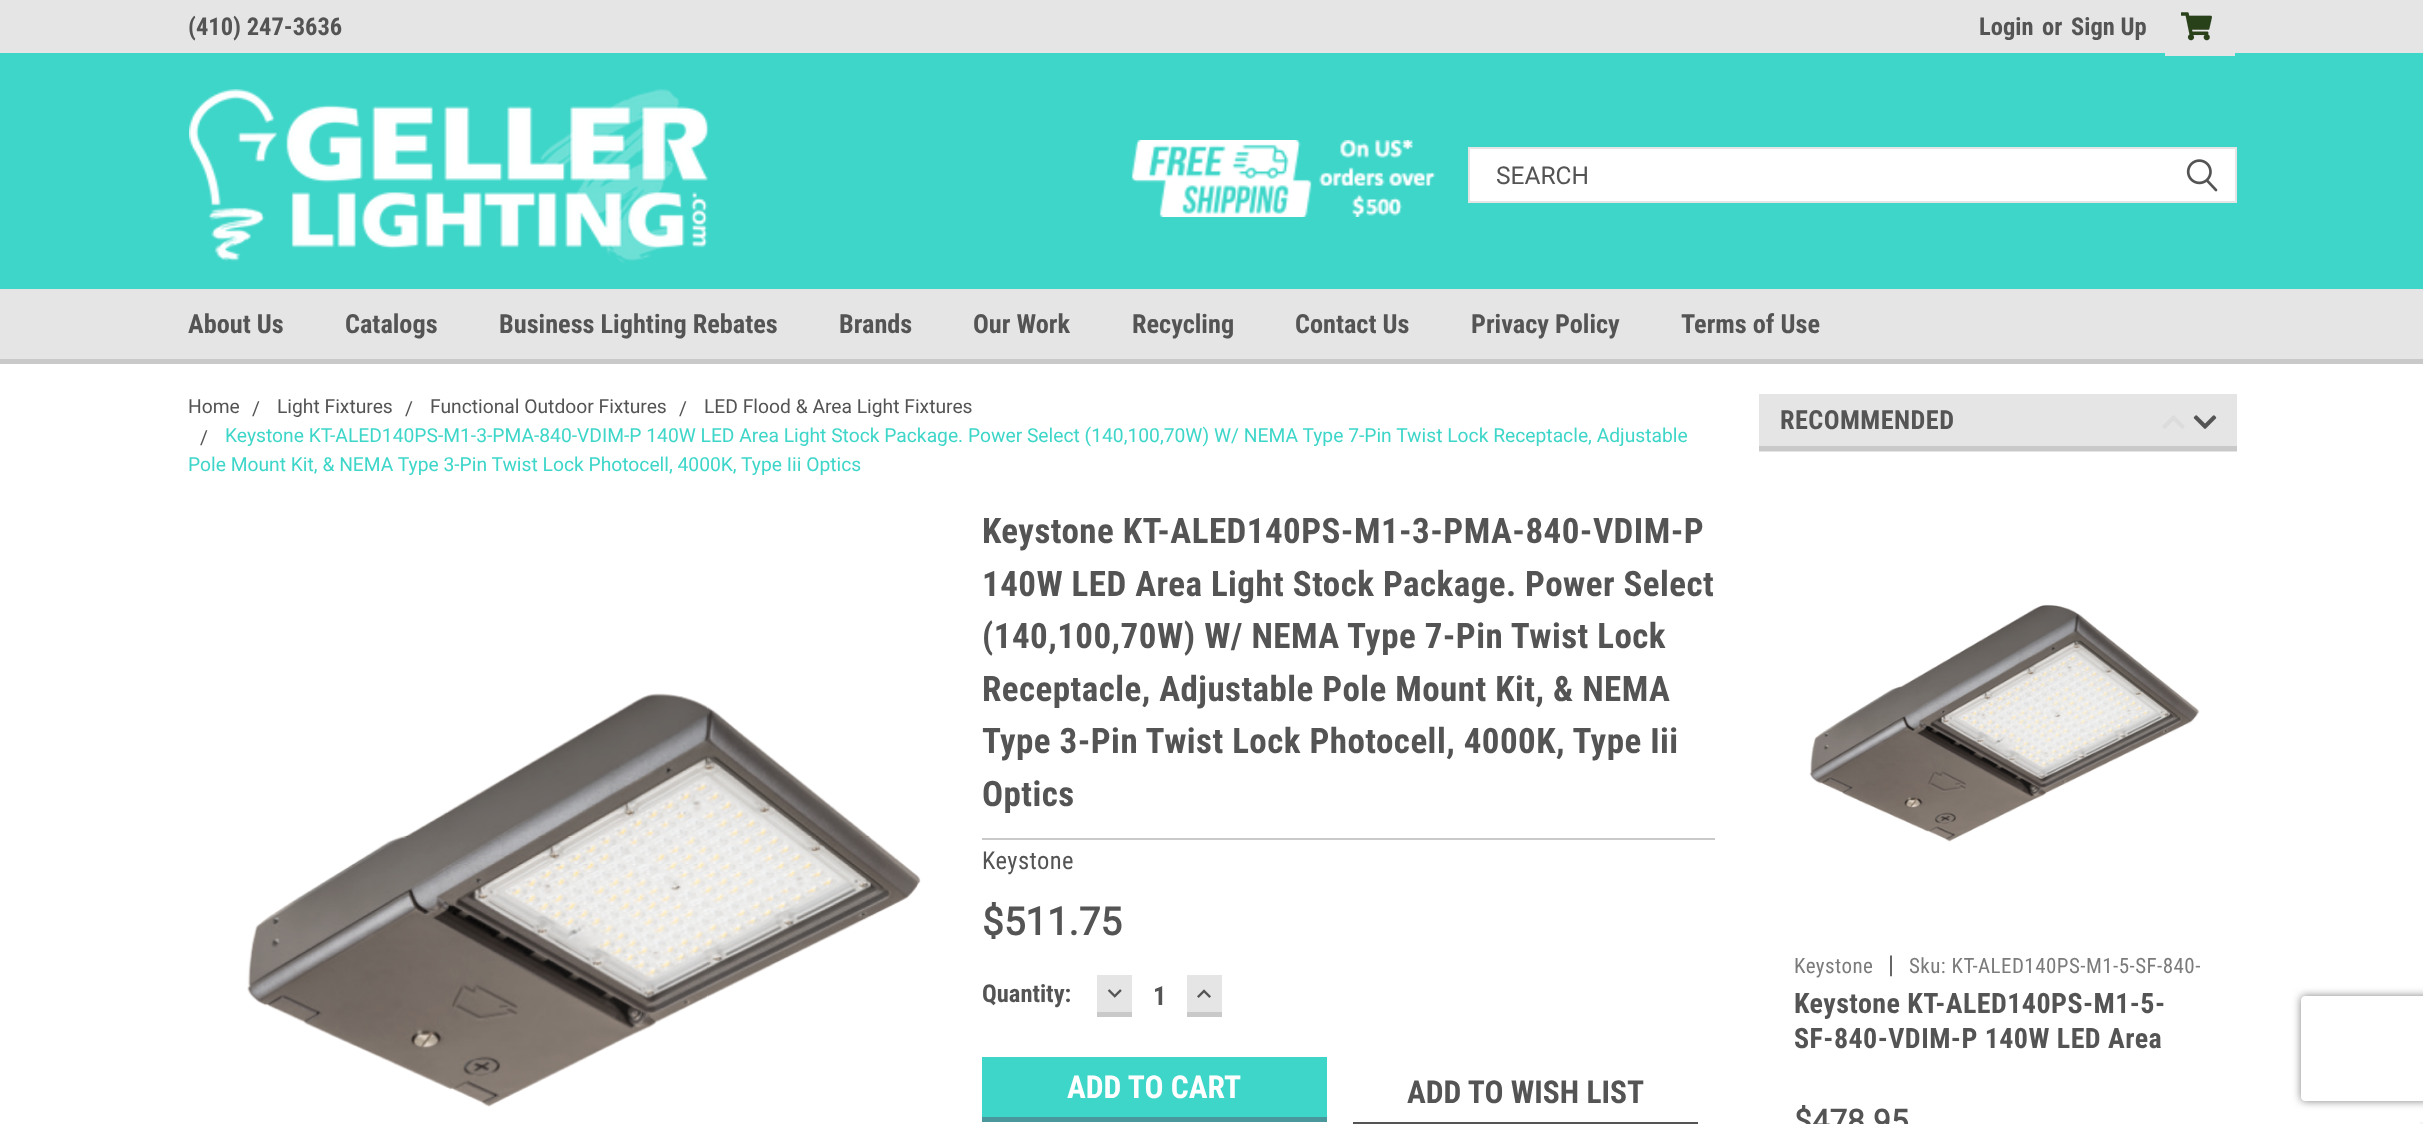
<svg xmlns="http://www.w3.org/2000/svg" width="2423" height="1124">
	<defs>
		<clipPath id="clip1"><path d="M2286 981H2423V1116H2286ZM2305 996H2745C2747 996 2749 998 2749 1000V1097C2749 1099 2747 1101 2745 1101H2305C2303 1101 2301 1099 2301 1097V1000C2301 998 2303 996 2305 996Z" clip-rule="evenodd" /></clipPath>
	</defs>
	<rect width="100%" height="100%" fill="#FFFFFF" />
	<rect x="0" y="53" width="2423" height="236" fill="#3ED6C9" />
	<rect x="0" y="0" width="2423" height="53" fill="#E5E5E5" />
	<g font-family="Roboto Condensed" font-size="24.5" font-weight="700" fill="#545454">
		<text x="188" y="35">(410) 247-3636</text>
		<text x="1979" y="35">Login</text>
		<text x="2042" y="35">or</text>
		<text x="2071" y="35">Sign Up</text>
	</g>
	<rect x="2165" y="53" width="70" height="3" fill="#E5E5E5" />
	<image x="2181" y="12" width="31" height="29" href="assets/img1.png" />
	<image x="189" y="89" width="520" height="174" href="assets/img2.png" />
	<image x="1131" y="140" width="305" height="77" href="assets/img3.png" />
	<rect x="1469" y="148" width="767" height="54" fill="#FFFFFF" stroke="#E5E5E5" stroke-width="2" />
	<text x="1496" y="184" font-family="Roboto" font-size="24.5" fill="#545454">SEARCH</text>
	<image x="2186" y="159" width="32" height="33" href="assets/img4.png" />
	<rect x="0" y="289" width="2423" height="70" fill="#E5E5E5" />
	<rect x="0" y="359" width="2423" height="5" fill="#C9C9C9" />
	<g font-family="Roboto Condensed" font-size="26.25" font-weight="700" fill="#545454">
		<text x="188" y="333">About Us</text>
		<text x="345" y="333">Catalogs</text>
		<text x="499" y="333">Business Lighting Rebates</text>
		<text x="839" y="333">Brands</text>
		<text x="973" y="333">Our Work</text>
		<text x="1132" y="333">Recycling</text>
		<text x="1295" y="333">Contact Us</text>
		<text x="1471" y="333">Privacy Policy</text>
		<text x="1681" y="333">Terms of Use</text>
	</g>
	<g font-family="Roboto" font-size="19.25" fill="#545454">
		<text x="188" y="413">Home</text>
		<text x="252" y="415">/</text>
		<text x="277" y="413">Light Fixtures</text>
		<text x="405" y="415">/</text>
		<text x="430" y="413">Functional Outdoor Fixtures</text>
		<text x="679" y="415">/</text>
		<text x="704" y="413">LED Flood &amp; Area Light Fixtures</text>
		<text x="200" y="444">/</text>
	</g>
	<g font-family="Roboto" font-size="19.25" fill="#3ED6C9">
		<text x="225" y="442">Keystone KT-ALED140PS-M1-3-PMA-840-VDIM-P 140W LED Area Light Stock Package. Power Select (140,100,70W) W/ NEMA Type 7-Pin Twist Lock Receptacle, Adjustable</text>
		<text x="188" y="471">Pole Mount Kit, &amp; NEMA Type 3-Pin Twist Lock Photocell, 4000K, Type Iii Optics</text>
	</g>
	<image x="247" y="693" width="674" height="414" href="assets/img5.png" />
	<rect x="982" y="838" width="733" height="2" fill="#C9C9C9" />
	<g font-family="Roboto Condensed" font-size="35" font-weight="700" letter-spacing="0.45" fill="#545454">
		<text x="982" y="543">Keystone KT-ALED140PS-M1-3-PMA-840-VDIM-P</text>
		<text x="982" y="596">140W LED Area Light Stock Package. Power Select</text>
		<text x="982" y="648">(140,100,70W) W/ NEMA Type 7-Pin Twist Lock</text>
		<text x="982" y="701">Receptacle, Adjustable Pole Mount Kit, &amp; NEMA</text>
		<text x="982" y="753">Type 3-Pin Twist Lock Photocell, 4000K, Type Iii</text>
		<text x="982" y="806">Optics</text>
	</g>
	<text x="982" y="869" font-family="Roboto Condensed" font-size="24.5" letter-spacing="0.45" fill="#545454">Keystone</text>
	<text x="982" y="935" font-family="Roboto" font-size="38.5" font-weight="700" fill="#545454">$511.75</text>
	<text x="982" y="1002" font-family="Roboto Condensed" font-size="24.5" font-weight="700" fill="#545454">Quantity:</text>
	<rect x="1097" y="975" width="35" height="37" fill="#E5E5E5" />
	<rect x="1097" y="1012" width="35" height="5" fill="#C9C9C9" />
	<image x="1107" y="989" width="15" height="9" href="assets/img6.png" />
	<text x="1153" y="1005" font-family="Roboto Condensed" font-size="26.25" font-weight="700" fill="#545454">1</text>
	<rect x="1187" y="975" width="35" height="37" fill="#E5E5E5" />
	<rect x="1187" y="1012" width="35" height="5" fill="#C9C9C9" />
	<image x="1197" y="989" width="14" height="9" href="assets/img7.png" />
	<rect x="982" y="1057" width="345" height="60" fill="#3ED6C9" />
	<rect x="982" y="1117" width="345" height="5" fill="#4A989B" />
	<text x="1067" y="1098" font-family="Roboto Condensed" font-size="31.5" font-weight="700" fill="#FFFFFF">ADD TO CART</text>
	<rect x="1353" y="1122" width="345" height="2" fill="#545454" />
	<text x="1407" y="1103" font-family="Roboto Condensed" font-size="31.5" font-weight="700" fill="#545454">ADD TO WISH LIST</text>
	<rect x="1759" y="394" width="478" height="58" fill="#E5E5E5" />
	<rect x="1759" y="446" width="478" height="5" fill="#C9C9C9" />
	<text x="1780" y="429" font-family="Roboto Condensed" font-size="26.25" font-weight="700" letter-spacing="0.45" fill="#545454">RECOMMENDED</text>
	<image x="2162" y="415" width="23" height="14" href="assets/img8.png" />
	<image x="2193" y="415" width="24" height="14" href="assets/img9.png" />
	<image x="1809" y="604" width="391" height="238" href="assets/img10.png" />
	<text x="1794" y="973" font-family="Roboto Condensed" font-size="21" letter-spacing="0.45" fill="#7B7B7B">Keystone</text>
	<text x="1888" y="973" font-family="Roboto" font-size="24.5" fill="#545454">|</text>
	<text x="1909" y="973" font-family="Roboto Condensed" font-size="21" letter-spacing="0.45" fill="#7B7B7B">Sku: KT-ALED140PS-M1-5-SF-840-</text>
	<g font-family="Roboto Condensed" font-size="28" font-weight="700" letter-spacing="0.45" fill="#545454">
		<text x="1794" y="1013">Keystone KT-ALED140PS-M1-5-</text>
		<text x="1794" y="1048">SF-840-VDIM-P 140W LED Area</text>
	</g>
	<text x="1794" y="1132" font-family="Roboto" font-size="31.5" font-weight="700" fill="#545454">$478.95</text>
	<g clip-path="url(#clip1)">
		<rect x="2301" y="996" width="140" height="105" rx="4" fill="#808080" filter="blur(4.5px)" />
	</g>
	<rect x="2420" y="1122" width="3" height="2" fill="#F5F5F5" />
</svg>
